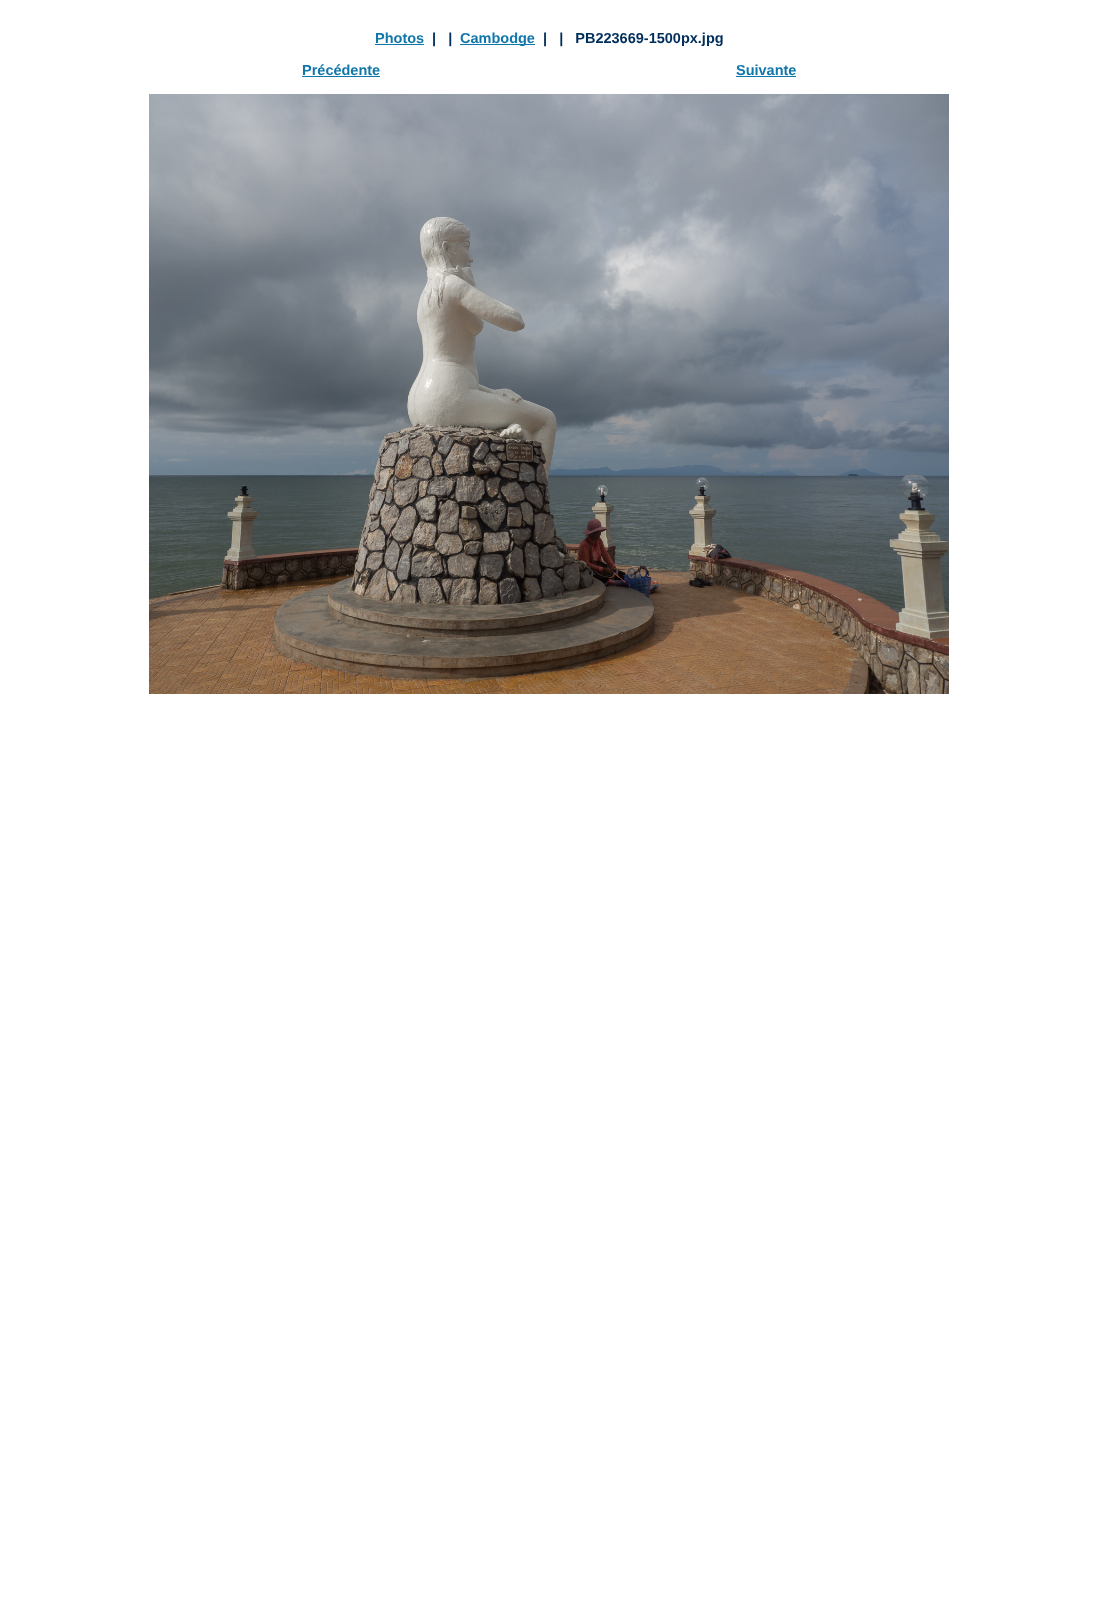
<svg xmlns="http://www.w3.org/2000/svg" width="1098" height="1603">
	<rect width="100%" height="100%" fill="#FFFFFF" />
	<text x="375" y="43" font-family="Liberation Sans" font-size="14.5" font-weight="700" fill="#1177AA">Photos</text>
	<rect x="375" y="44" width="49" height="1" fill="#1177AA" />
	<text x="432" y="43" font-family="Liberation Sans" font-size="14.5" font-weight="700" fill="#002E5B" xml:space="preserve">|   |</text>
	<rect x="460" y="44" width="75" height="1" fill="#1177AA" />
	<text x="460" y="43" font-family="Liberation Sans" font-size="14.5" font-weight="700" fill="#1177AA">Cambodge</text>
	<text x="543" y="43" font-family="Liberation Sans" font-size="14.5" font-weight="700" fill="#002E5B" xml:space="preserve">|   |   PB223669-1500px.jpg</text>
	<text x="302" y="75" font-family="Liberation Sans" font-size="14.5" font-weight="700" fill="#1177AA">Précédente</text>
	<rect x="302" y="76" width="78" height="1" fill="#1177AA" />
	<text x="736" y="75" font-family="Liberation Sans" font-size="14.5" font-weight="700" fill="#1177AA">Suivante</text>
	<rect x="736" y="76" width="60" height="1" fill="#1177AA" />
	<image x="149" y="94" width="800" height="600" href="assets/img1.png" />
</svg>
